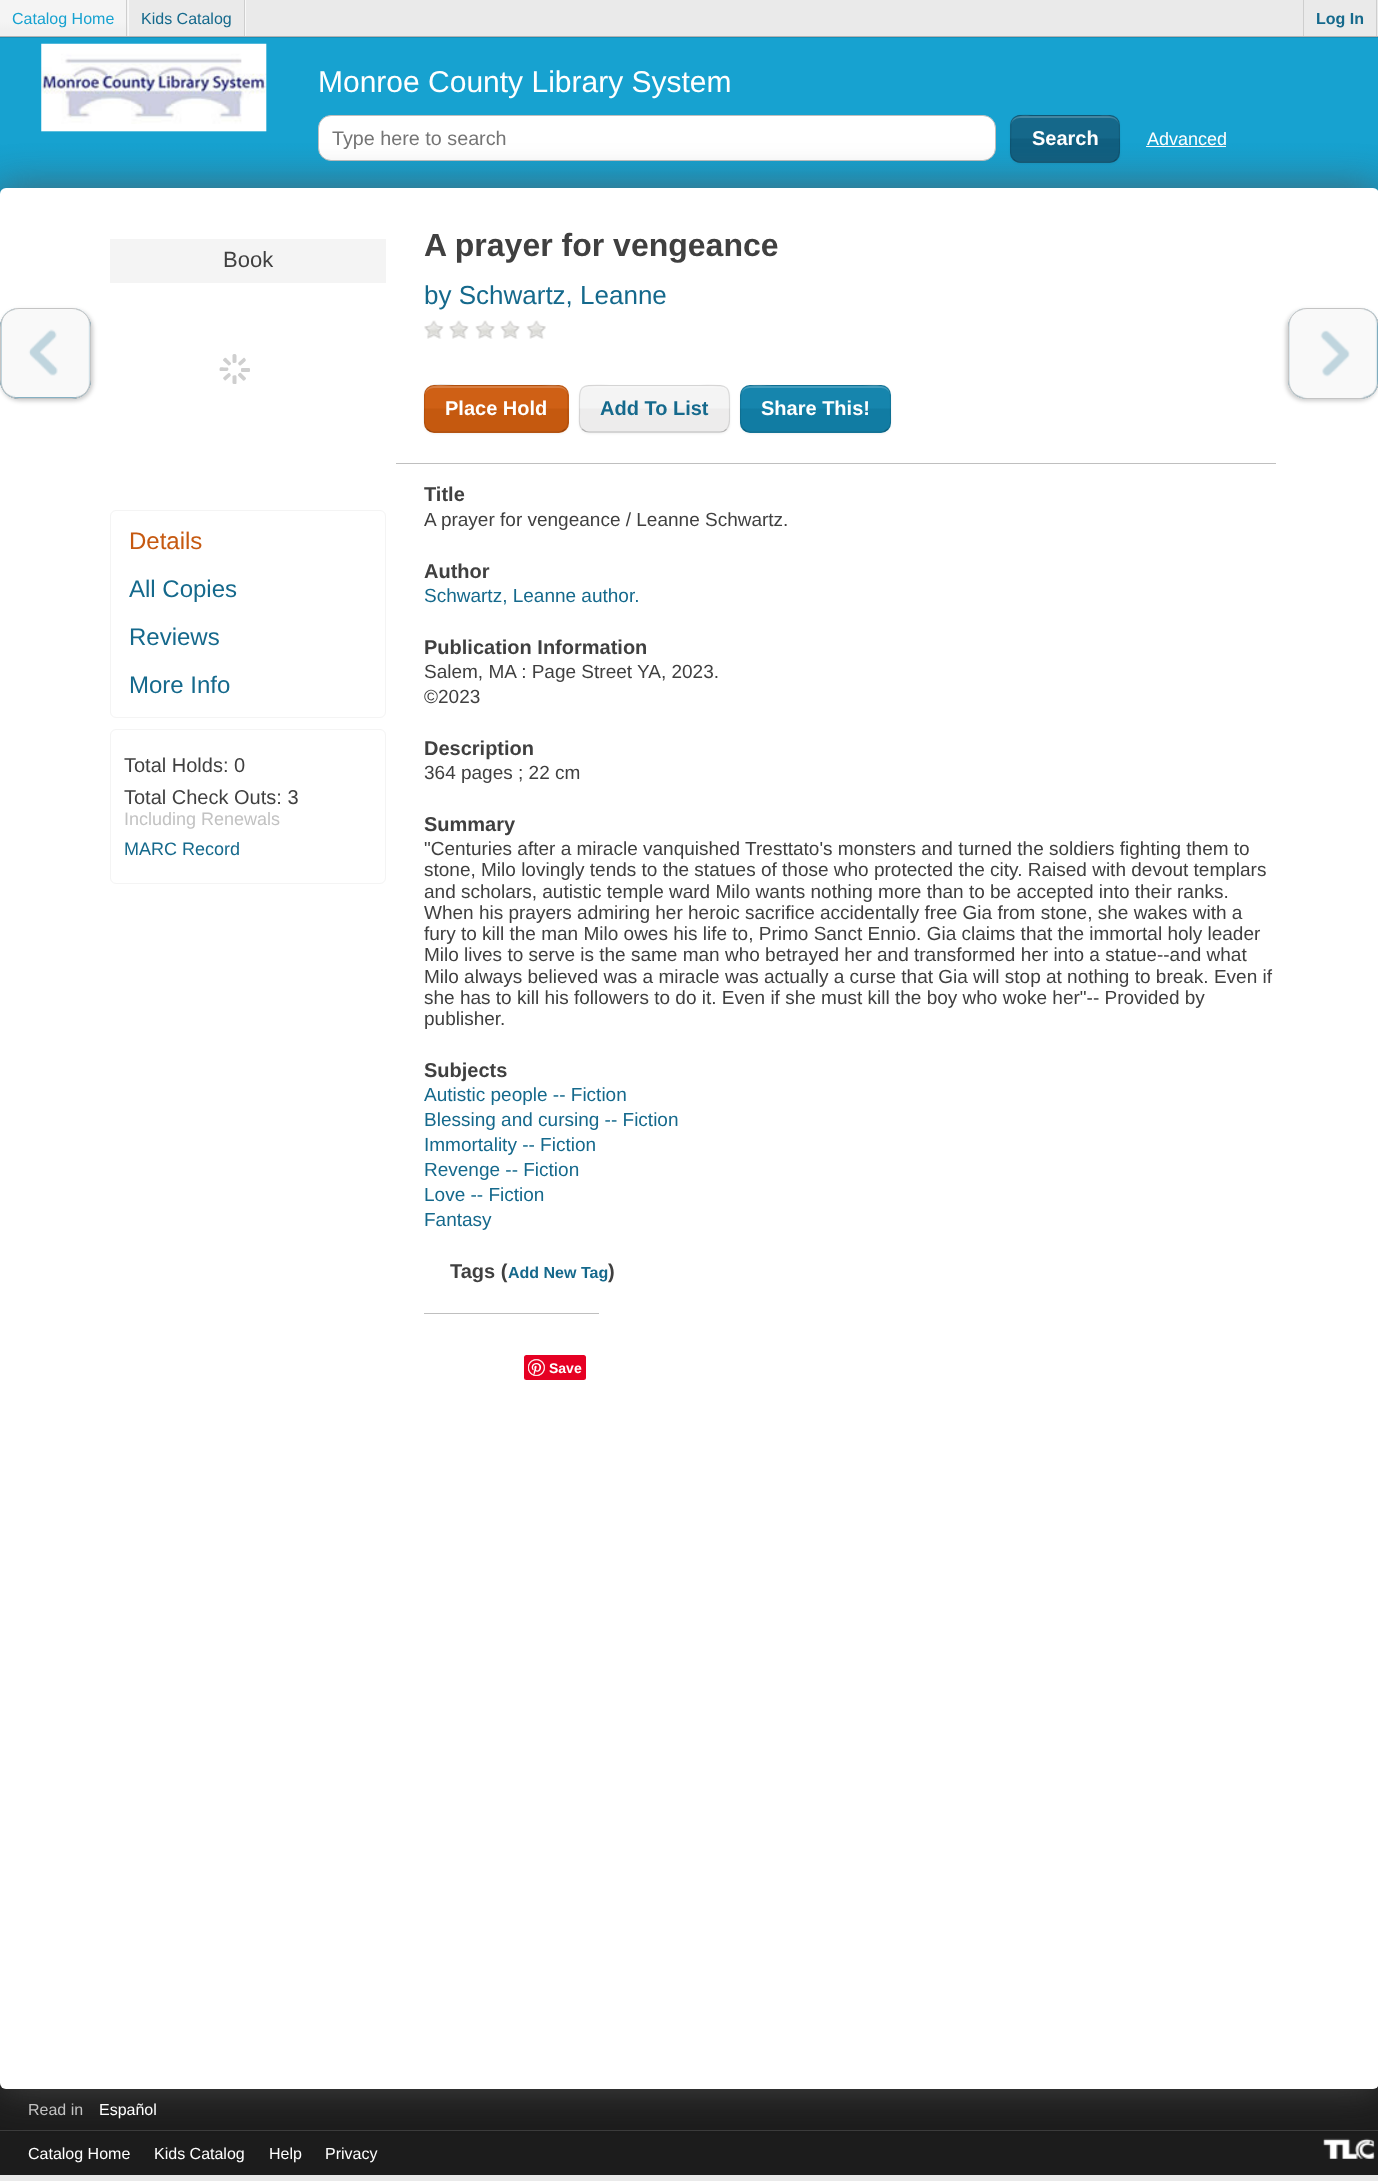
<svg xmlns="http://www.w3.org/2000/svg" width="1378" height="2181">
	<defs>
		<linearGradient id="g1" gradientUnits="userSpaceOnUse" x1="63" y1="0" x2="63" y2="36"><stop offset="0.6" stop-color="#F4F4F4" /><stop offset="0.8" stop-color="#F0F0F0" /></linearGradient>
		<linearGradient id="g2" gradientUnits="userSpaceOnUse" x1="689" y1="37" x2="689" y2="250"><stop offset="0.5" stop-color="#17A2D0" /><stop offset="1" stop-color="#158FB8" /></linearGradient>
		<clipPath id="clip1"><rect x="1010" y="115" width="110" height="48" rx="10" /></clipPath>
		<linearGradient id="g3" gradientUnits="userSpaceOnUse" x1="1065" y1="71" x2="1065" y2="116"><stop offset="0.48" stop-color="#15688A" /><stop offset="0.52" stop-color="#105F80" /></linearGradient>
		<linearGradient id="g4" gradientUnits="userSpaceOnUse" x1="1065" y1="116" x2="1065" y2="161"><stop offset="0.48" stop-color="#15688A" /><stop offset="0.52" stop-color="#105F80" /></linearGradient>
		<linearGradient id="g5" gradientUnits="userSpaceOnUse" x1="1065" y1="161" x2="1065" y2="206"><stop offset="0.48" stop-color="#15688A" /><stop offset="0.52" stop-color="#105F80" /></linearGradient>
		<linearGradient id="g6" gradientUnits="userSpaceOnUse" x1="689" y1="2026" x2="689" y2="2175"><stop offset="0" stop-color="#3A3A3A" /><stop offset="0.3" stop-color="#1C1C1C" /></linearGradient>
		<clipPath id="clip2"><rect x="424" y="385" width="145" height="48" rx="10" /></clipPath>
		<linearGradient id="g7" gradientUnits="userSpaceOnUse" x1="496" y1="341" x2="496" y2="386"><stop offset="0.48" stop-color="#CF6015" /><stop offset="0.52" stop-color="#C5590F" /></linearGradient>
		<linearGradient id="g8" gradientUnits="userSpaceOnUse" x1="496" y1="386" x2="496" y2="431"><stop offset="0.48" stop-color="#CF6015" /><stop offset="0.52" stop-color="#C5590F" /></linearGradient>
		<linearGradient id="g9" gradientUnits="userSpaceOnUse" x1="496" y1="431" x2="496" y2="476"><stop offset="0.48" stop-color="#CF6015" /><stop offset="0.52" stop-color="#C5590F" /></linearGradient>
		<clipPath id="clip3"><rect x="579" y="385" width="151" height="48" rx="10" /></clipPath>
		<linearGradient id="g10" gradientUnits="userSpaceOnUse" x1="654" y1="341" x2="654" y2="386"><stop offset="0.48" stop-color="#F4F4F4" /><stop offset="0.52" stop-color="#EDECEC" /></linearGradient>
		<linearGradient id="g11" gradientUnits="userSpaceOnUse" x1="654" y1="386" x2="654" y2="431"><stop offset="0.48" stop-color="#F4F4F4" /><stop offset="0.52" stop-color="#EDECEC" /></linearGradient>
		<clipPath id="clip4"><rect x="740" y="385" width="151" height="48" rx="10" /></clipPath>
		<linearGradient id="g12" gradientUnits="userSpaceOnUse" x1="816" y1="341" x2="816" y2="386"><stop offset="0.48" stop-color="#1685AD" /><stop offset="0.52" stop-color="#117CA3" /></linearGradient>
		<linearGradient id="g13" gradientUnits="userSpaceOnUse" x1="816" y1="386" x2="816" y2="431"><stop offset="0.48" stop-color="#1685AD" /><stop offset="0.52" stop-color="#117CA3" /></linearGradient>
		<linearGradient id="g14" gradientUnits="userSpaceOnUse" x1="816" y1="431" x2="816" y2="476"><stop offset="0.48" stop-color="#1685AD" /><stop offset="0.52" stop-color="#117CA3" /></linearGradient>
	</defs>
	<rect width="100%" height="100%" fill="#EAEAEA" />
	<rect x="128" y="0" width="1" height="36" fill="#F8F8F8" />
	<rect x="0" y="0" width="128" height="36" fill="url(#g1)" />
	<rect x="126" y="0" width="1" height="36" fill="#CECECE" />
	<text x="12" y="24" font-family="Liberation Sans" font-size="16" fill="#17A2D0">Catalog Home</text>
	<rect x="245" y="0" width="1" height="36" fill="#F8F8F8" />
	<rect x="244" y="0" width="1" height="36" fill="#CECECE" />
	<text x="141" y="24" font-family="Liberation Sans" font-size="16" fill="#15698C">Kids Catalog</text>
	<rect x="1303" y="0" width="1" height="36" fill="#CECECE" />
	<rect x="1376" y="0" width="1" height="36" fill="#CECECE" />
	<text x="1316" y="24" font-family="Liberation Sans" font-size="16" font-weight="700" fill="#15698C">Log In</text>
	<rect x="0" y="37" width="1378" height="1" fill="#158FB8" />
	<rect x="0" y="38" width="1378" height="156" fill="url(#g2)" />
	<rect x="0" y="36" width="1378" height="1" fill="#B4B4B4" />
	<image x="41" y="43" width="226" height="89" href="assets/img1.png" />
	<text x="318" y="92" font-family="Liberation Sans" font-size="30" fill="#FFFFFF">Monroe County Library System</text>
	<rect x="318.5" y="115.5" width="677" height="45" rx="12.5" fill="#FFFFFF" stroke="#BFBFBF" />
	<text x="332" y="145" font-family="Liberation Sans" font-size="19.75" fill="#757575">Type here to search</text>
	<rect x="1010" y="116" width="110" height="48" rx="10" fill="#000000" fill-opacity="0.05" filter="blur(1px)" />
	<g clip-path="url(#clip1)">
		<rect x="1010" y="115" width="110" height="1" fill="url(#g3)" />
		<rect x="1010" y="116" width="110" height="45" fill="url(#g4)" />
		<rect x="1010" y="161" width="110" height="2" fill="url(#g5)" />
	</g>
	<path d="M1020 118H1110C1115 118 1119 121 1119 126C1119 113 1104 116 1095 116H1035C1026 116 1011 113 1011 126C1011 121 1015 118 1020 118Z" fill="#4486A1" />
	<path d="M1116.5 159C1115 161 1112.5 162 1110 162H1020C1017.5 162 1015 161 1013.5 159" fill="none" stroke="#000000" stroke-opacity="0.25" stroke-width="1.2" />
	<path d="M1013.5 159C1010 156 1010.5 152 1010.5 148L1011 123C1013 112.5 1028 115.5 1035 115.5H1095C1120 115.5 1119.5 114.5 1119.5 139C1119.5 144.5 1121 154.5 1116.5 159" fill="none" stroke="#000000" stroke-opacity="0.1" stroke-width="1.2" />
	<text x="1032" y="145" font-family="Liberation Sans" font-size="20" font-weight="700" fill="#FFFFFF">Search</text>
	<text x="1147" y="145" font-family="Liberation Sans" font-size="18" fill="#FFFFFF">Advanced</text>
	<rect x="1146" y="146" width="80" height="1" fill="#FFFFFF" />
	<rect x="0" y="2083" width="1378" height="92" fill="url(#g6)" />
	<rect x="0" y="2130" width="1378" height="1" fill="#3C3C3C" />
	<image x="1323" y="2138" width="52" height="21" href="assets/img8.png" />
	<rect x="0" y="188" width="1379" height="1901" rx="6" fill="#555555" fill-opacity="0.7" filter="blur(19px)" />
	<rect x="0" y="188" width="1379" height="1901" rx="6" fill="#FFFFFF" />
	<rect x="1" y="310" width="92" height="91" rx="19" fill="#000000" fill-opacity="0.2" filter="blur(2px)" />
	<rect x="0" y="308" width="91" height="91" rx="19" fill="#15698C" />
	<image x="1" y="308" width="90" height="90" href="assets/img2.png" />
	<rect x="0.5" y="308.5" width="90" height="90" rx="18.5" fill="none" stroke="#C4C4C4" />
	<rect x="110" y="239" width="276" height="44" fill="#F4F4F4" />
	<text x="223" y="267" font-family="Liberation Sans" font-size="22" fill="#404040">Book</text>
	<rect x="241" y="368" width="9" height="4" rx="1" fill="#CFCFCF" />
	<path d="M241 373L246 378C246 378.5 246 379 245.5 379.5C243 382 243 380 240.5 378L238 375.5C237.5 374 240 372 241 373ZM236.5 376.5V383.5C236 384 235.5 384 235 384C232 384.5 232.5 383 232.5 380V376C233.5 375 236.5 375 236.5 376.5ZM230.5 376L225.5 380.5C225 380.5 224.5 380.5 224.5 380C222 378 223.5 377.5 225.5 375.5L228.5 373C229.5 372.5 231.5 374.5 230.5 376ZM227 371H220.5C220 371 219.5 370.5 219.5 370C219.5 366.5 221 367.5 224 367.5H227.5C229 368 228.5 371 227 371ZM228 365L223 360.5C223 360 223 359.5 223.5 359C226 356.5 226 358.5 228.5 360.5L231 363C231.5 364.5 229 366.5 228 365Z" fill="#CFCFCF" />
	<path d="M232.5 361.5V355C233 354.5 233.5 354 234 354C237 354 236.5 355.5 236.5 358.5V362C235.5 363.5 232.5 363.5 232.5 361.5ZM238.5 362.5L243.5 358C244 357.5 244.5 358 244.5 358C247 360.5 245.5 361 243.5 363L240.5 365.5C239.5 366 237.5 364 238.5 362.5Z" fill="#CFCFCF" />
	<rect x="110.5" y="510.5" width="275" height="207" rx="5.5" fill="none" stroke="#F4F4F4" />
	<text x="129" y="549" font-family="Liberation Sans" font-size="24" fill="#C65910">Details</text>
	<g font-family="Liberation Sans" font-size="24" fill="#15698C">
		<text x="129" y="597">All Copies</text>
		<text x="129" y="645">Reviews</text>
		<text x="129" y="693">More Info</text>
	</g>
	<rect x="110.5" y="729.5" width="275" height="154" rx="5.5" fill="none" stroke="#F4F4F4" />
	<g font-family="Liberation Sans" font-size="20" fill="#404040">
		<text x="124" y="772">Total Holds: 0</text>
		<text x="124" y="804">Total Check Outs: 3</text>
	</g>
	<text x="124" y="825" font-family="Liberation Sans" font-size="18" fill="#C2C2C2">Including Renewals</text>
	<text x="124" y="855" font-family="Liberation Sans" font-size="18" fill="#15698C">MARC Record</text>
	<rect x="396" y="463" width="880" height="1" fill="#BFBFBF" />
	<text x="424" y="256" font-family="Liberation Sans" font-size="32" font-weight="700" fill="#404040">A prayer for vengeance</text>
	<text x="424" y="304" font-family="Liberation Sans" font-size="26" fill="#15698C">by Schwartz, Leanne</text>
	<image x="424" y="320" width="20" height="19" href="assets/img3.png" />
	<image x="449" y="320" width="20" height="19" href="assets/img3.png" />
	<image x="475" y="320" width="20" height="19" href="assets/img4.png" />
	<image x="500" y="320" width="20" height="19" href="assets/img4.png" />
	<image x="526" y="320" width="20" height="19" href="assets/img5.png" />
	<rect x="424" y="386" width="145" height="48" rx="10" fill="#000000" fill-opacity="0.05" filter="blur(1px)" />
	<g clip-path="url(#clip2)">
		<rect x="424" y="385" width="145" height="1" fill="url(#g7)" />
		<rect x="424" y="386" width="145" height="45" fill="url(#g8)" />
		<rect x="424" y="431" width="145" height="2" fill="url(#g9)" />
	</g>
	<path d="M434 388H559C564 388 568 391 568 396C568 381 547 386 538 386H455C446 386 425 381 425 396C425 391 429 388 434 388Z" fill="#FFFFFF" fill-opacity="0.2" />
	<path d="M565.5 429C563.5 431 561 432 559 432H434C431.5 432 429 431 427 429" fill="none" stroke="#000000" stroke-opacity="0.25" stroke-width="1.2" />
	<path d="M427 429C422.5 424.5 424.5 414.5 424.5 409V393C427 381 448.5 385.5 454.5 385.5H538C570.5 385.5 568 383 568 413.5C568 418.5 569.5 425 565.5 429" fill="none" stroke="#000000" stroke-opacity="0.1" stroke-width="1.2" />
	<text x="445" y="415" font-family="Liberation Sans" font-size="20" font-weight="700" fill="#FFFFFF">Place Hold</text>
	<rect x="579" y="386" width="151" height="48" rx="10" fill="#000000" fill-opacity="0.05" filter="blur(1px)" />
	<g clip-path="url(#clip3)">
		<rect x="579" y="385" width="151" height="1" fill="url(#g10)" />
		<rect x="579" y="386" width="151" height="45" fill="url(#g11)" />
	</g>
	<path d="M589 388H720C725 388 729 391 729 396C729 381 707 386 698 386H611C602 386 580 381 580 396C580 391 584 388 589 388Z" fill="#FFFFFF" fill-opacity="0.2" />
	<path d="M726.5 429C725 431 722.5 432 720 432H589C586.5 432 584 431 582 429" fill="none" stroke="#000000" stroke-opacity="0.25" stroke-width="1.2" />
	<path d="M582 429C578 425 579.5 418.5 579.5 413.5C579.5 382 577 385.5 610.5 385.5H698C731.5 385.5 729.5 382 729.5 413.5C729.5 418.5 730.5 425 726.5 429" fill="none" stroke="#000000" stroke-opacity="0.1" stroke-width="1.2" />
	<text x="600" y="415" font-family="Liberation Sans" font-size="20" font-weight="700" fill="#15698C">Add To List</text>
	<rect x="740" y="386" width="151" height="48" rx="10" fill="#000000" fill-opacity="0.05" filter="blur(1px)" />
	<g clip-path="url(#clip4)">
		<rect x="740" y="385" width="151" height="1" fill="url(#g12)" />
		<rect x="740" y="386" width="151" height="45" fill="url(#g13)" />
		<rect x="740" y="431" width="151" height="2" fill="url(#g14)" />
	</g>
	<path d="M750 388H881C886 388 890 391 890 396C890 381 868 386 859 386H772C763 386 741 381 741 396C741 391 745 388 750 388Z" fill="#FFFFFF" fill-opacity="0.2" />
	<path d="M888 429C886 431 883.5 432 881 432H750C747.5 432 745 431 743.5 429" fill="none" stroke="#000000" stroke-opacity="0.25" stroke-width="1.2" />
	<path d="M743.5 429C739.5 425 740.5 418.5 740.5 413.5C740.5 382 738.5 385.5 772 385.5H859.5C893 385.5 890.5 382 890.5 413.5C890.5 418.5 892 425 888 429" fill="none" stroke="#000000" stroke-opacity="0.1" stroke-width="1.2" />
	<text x="761" y="415" font-family="Liberation Sans" font-size="20" font-weight="700" fill="#FFFFFF">Share This!</text>
	<text x="424" y="501" font-family="Liberation Sans" font-size="20" font-weight="700" fill="#404040">Title</text>
	<text x="424" y="526" font-family="Liberation Sans" font-size="19" fill="#404040">A prayer for vengeance / Leanne Schwartz.</text>
	<text x="424" y="578" font-family="Liberation Sans" font-size="20" font-weight="700" fill="#404040">Author</text>
	<text x="424" y="602" font-family="Liberation Sans" font-size="19" fill="#15698C">Schwartz, Leanne author.</text>
	<text x="424" y="654" font-family="Liberation Sans" font-size="20" font-weight="700" fill="#404040">Publication Information</text>
	<g font-family="Liberation Sans" font-size="19" fill="#404040">
		<text x="424" y="678">Salem, MA : Page Street YA, 2023.</text>
		<text x="424" y="703">©2023</text>
	</g>
	<text x="424" y="755" font-family="Liberation Sans" font-size="20" font-weight="700" fill="#404040">Description</text>
	<text x="424" y="779" font-family="Liberation Sans" font-size="19" fill="#404040">364 pages ; 22 cm</text>
	<text x="424" y="831" font-family="Liberation Sans" font-size="20" font-weight="700" fill="#404040">Summary</text>
	<g font-family="Liberation Sans" font-size="19" fill="#404040">
		<text x="424" y="855">"Centuries after a miracle vanquished Tresttato's monsters and turned the soldiers fighting them to</text>
		<text x="424" y="876">stone, Milo lovingly tends to the statues of those who protected the city. Raised with devout templars</text>
		<text x="424" y="898">and scholars, autistic temple ward Milo wants nothing more than to be accepted into their ranks.</text>
		<text x="424" y="919">When his prayers admiring her heroic sacrifice accidentally free Gia from stone, she wakes with a</text>
		<text x="424" y="940">fury to kill the man Milo owes his life to, Primo Sanct Ennio. Gia claims that the immortal holy leader</text>
		<text x="424" y="961">Milo lives to serve is the same man who betrayed her and transformed her into a statue--and what</text>
		<text x="424" y="983">Milo always believed was a miracle was actually a curse that Gia will stop at nothing to break. Even if</text>
		<text x="424" y="1004">she has to kill his followers to do it. Even if she must kill the boy who woke her"-- Provided by</text>
		<text x="424" y="1025">publisher.</text>
	</g>
	<text x="424" y="1077" font-family="Liberation Sans" font-size="20" font-weight="700" fill="#404040">Subjects</text>
	<g font-family="Liberation Sans" font-size="19" fill="#15698C">
		<text x="424" y="1101">Autistic people -- Fiction</text>
		<text x="424" y="1126">Blessing and cursing -- Fiction</text>
		<text x="424" y="1151">Immortality -- Fiction</text>
		<text x="424" y="1176">Revenge -- Fiction</text>
		<text x="424" y="1201">Love -- Fiction</text>
		<text x="424" y="1226">Fantasy</text>
	</g>
	<text x="450" y="1278" font-family="Liberation Sans" font-size="20" font-weight="700" fill="#404040">Tags (</text>
	<text x="508" y="1278" font-family="Liberation Sans" font-size="16" font-weight="700" fill="#15698C">Add New Tag</text>
	<text x="608" y="1278" font-family="Liberation Sans" font-size="20" font-weight="700" fill="#404040">)</text>
	<rect x="424" y="1313" width="175" height="1" fill="#BFBFBF" />
	<rect x="524" y="1355" width="62" height="25" rx="2.5" fill="#E60023" />
	<image x="528" y="1359" width="17" height="17" href="assets/img6.png" />
	<text x="549" y="1373" font-family="Liberation Sans" font-size="14" font-weight="700" fill="#FFFFFF">Save</text>
	<rect x="1286" y="310" width="92" height="91" rx="19" fill="#000000" fill-opacity="0.2" filter="blur(2px)" />
	<rect x="1288" y="308" width="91" height="91" rx="19" fill="#15698C" />
	<image x="1288" y="308" width="90" height="91" href="assets/img7.png" />
	<rect x="1288.5" y="308.5" width="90" height="90" rx="18.5" fill="none" stroke="#C4C4C4" />
	<text x="28" y="2115" font-family="Liberation Sans" font-size="16" fill="#C2C2C2">Read in</text>
	<g font-family="Liberation Sans" font-size="16" fill="#FFFFFF">
		<text x="99" y="2115">Español</text>
		<text x="28" y="2159">Catalog Home</text>
		<text x="154" y="2159">Kids Catalog</text>
		<text x="269" y="2159">Help</text>
		<text x="325" y="2159">Privacy</text>
	</g>
</svg>
